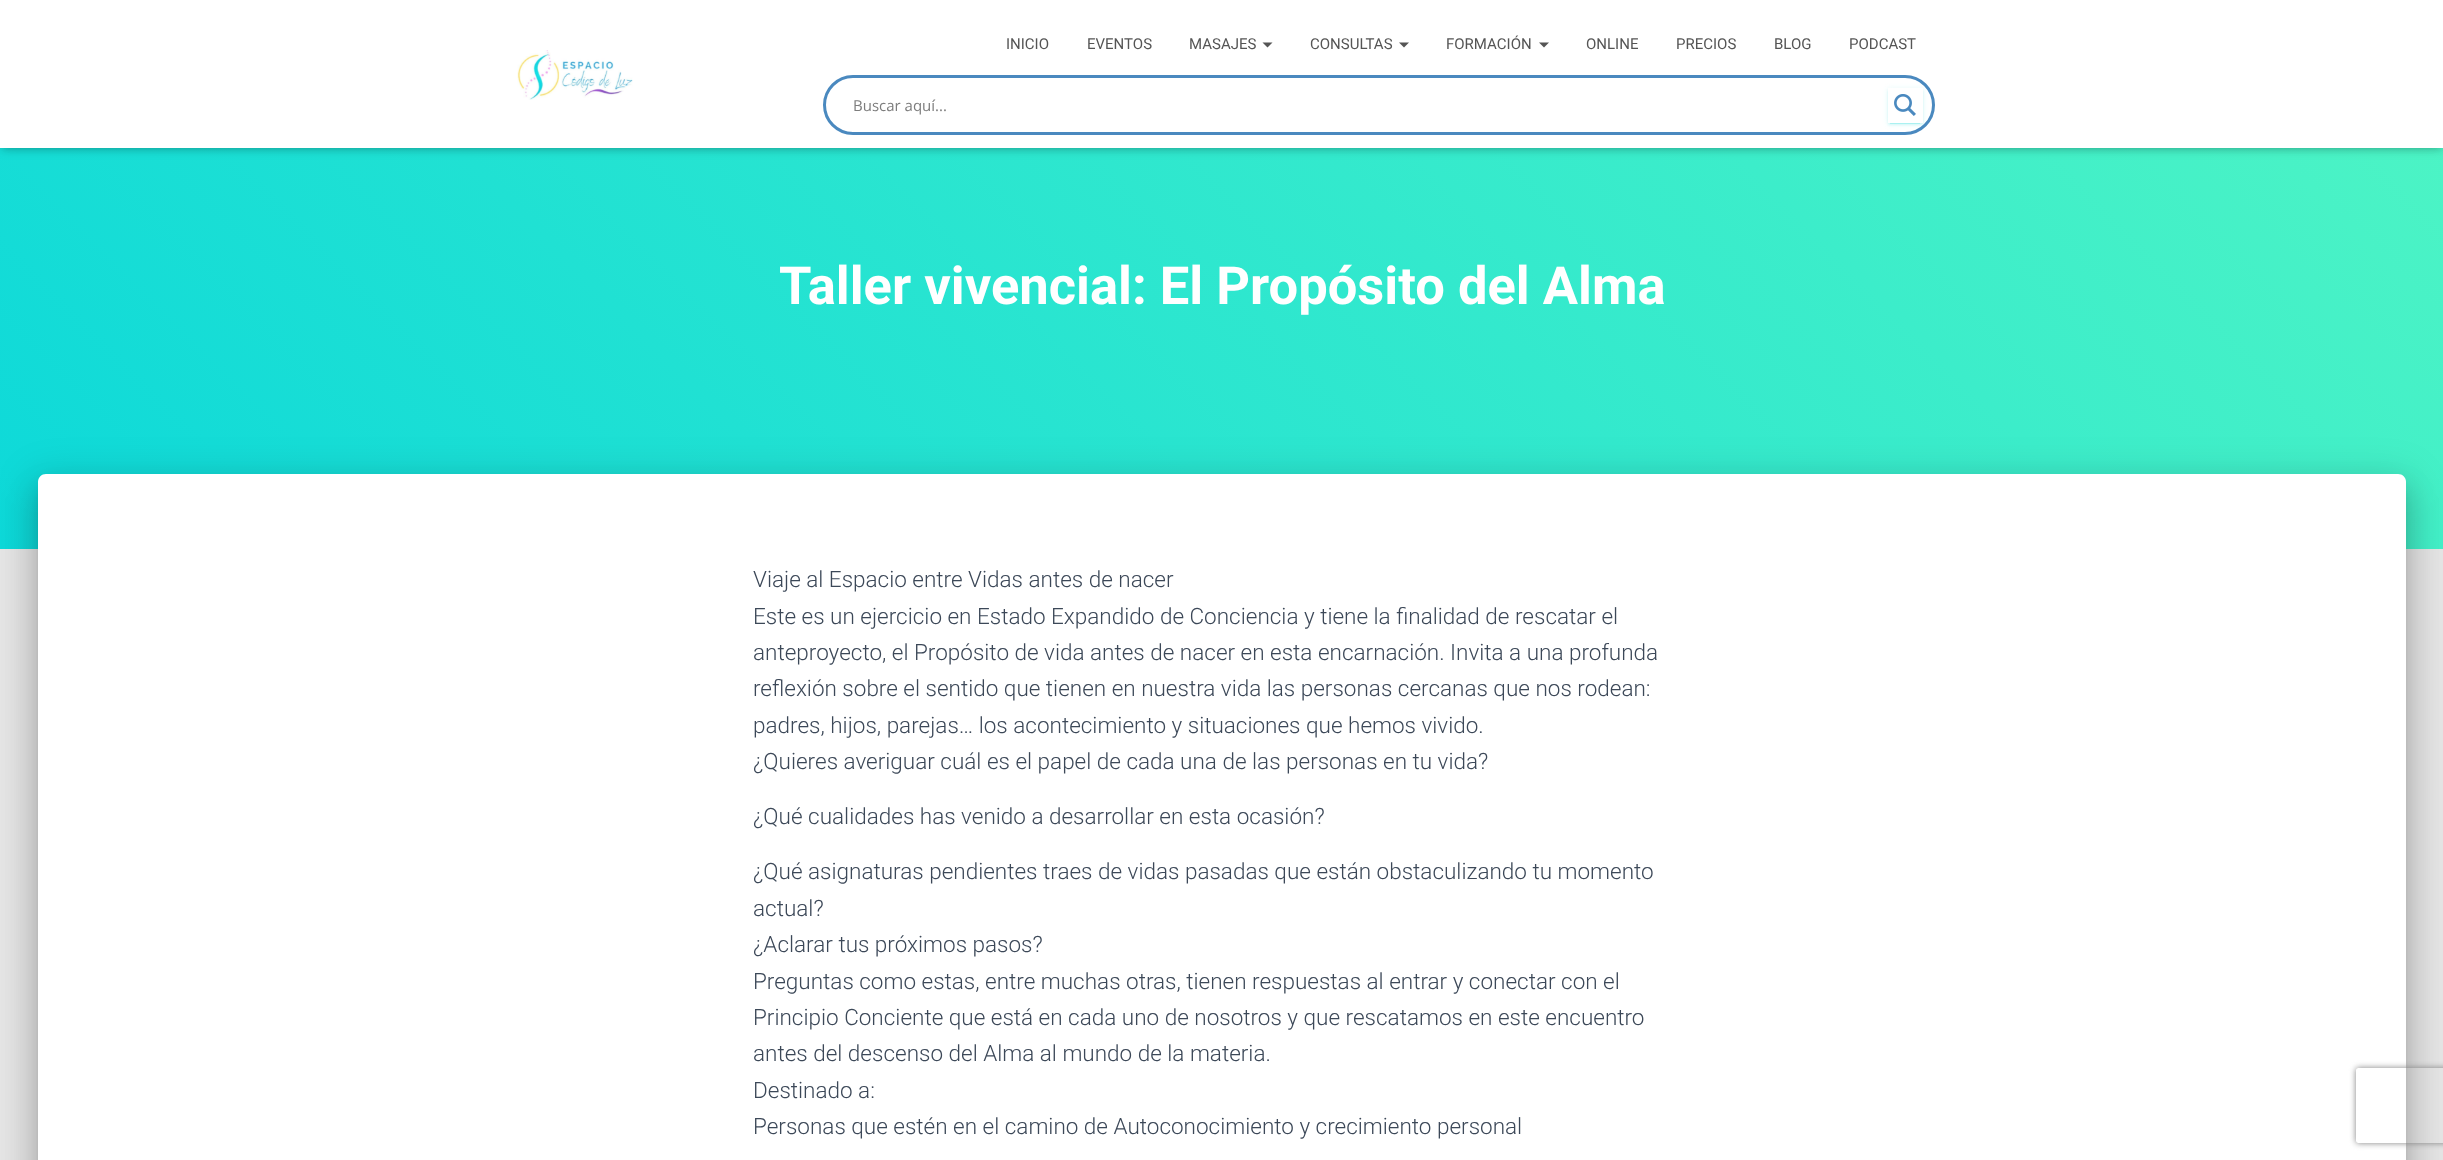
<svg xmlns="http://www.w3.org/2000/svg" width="2443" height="1160">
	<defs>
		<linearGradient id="g1" gradientUnits="userSpaceOnUse" x1="474" y1="1023" x2="1970" y2="-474"><stop offset="0" stop-color="#0DD9D9" /><stop offset="1" stop-color="#4FF5C4" /></linearGradient>
		<clipPath id="clip1"><path d="M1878 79H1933V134H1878ZM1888 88H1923V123H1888Z" clip-rule="evenodd" /></clipPath>
		<clipPath id="clip2"><path d="M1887 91H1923V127H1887ZM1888 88H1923V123H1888Z" clip-rule="evenodd" /></clipPath>
		<clipPath id="clip3"><path d="M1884 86H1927V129H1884ZM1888 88H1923V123H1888Z" clip-rule="evenodd" /></clipPath>
		<clipPath id="clip4"><path d="M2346 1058H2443V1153H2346ZM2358.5 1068H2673.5C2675 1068 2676 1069 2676 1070.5V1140.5C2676 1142 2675 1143 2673.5 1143H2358.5C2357 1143 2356 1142 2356 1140.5V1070.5C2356 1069 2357 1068 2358.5 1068Z" clip-rule="evenodd" /></clipPath>
	</defs>
	<rect width="100%" height="100%" fill="#E5E5E5" />
	<rect x="0" y="148" width="2443" height="401" fill="url(#g1)" />
	<rect x="3" y="8" width="2438" height="142" fill="#000000" fill-opacity="0.1" filter="blur(3px)" />
	<rect x="0" y="1" width="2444" height="148" fill="#000000" fill-opacity="0.12" filter="blur(6px)" />
	<rect x="8" y="9" width="2428" height="132" fill="#000000" fill-opacity="0.42" filter="blur(6px)" />
	<rect x="0" y="0" width="2443" height="148" fill="#FFFFFF" />
	<image x="517" y="50" width="116" height="50" href="assets/img1.png" />
	<g font-family="Roboto" font-size="15" fill="#555555">
		<text x="1006" y="49">INICIO</text>
		<text x="1087" y="49">EVENTOS</text>
		<text x="1189" y="49">MASAJES</text>
	</g>
	<path d="M1262.5 42.5H1272.5L1267.5 47.5Z" fill="#555555" />
	<text x="1310" y="49" font-family="Roboto" font-size="15" fill="#555555">CONSULTAS</text>
	<path d="M1399 42.5H1409L1404 47.5Z" fill="#555555" />
	<text x="1446" y="49" font-family="Roboto" font-size="15" fill="#555555">FORMACIÓN</text>
	<path d="M1539 42.5H1549L1544 47.5Z" fill="#555555" />
	<g font-family="Roboto" font-size="15" fill="#555555">
		<text x="1586" y="49">ONLINE</text>
		<text x="1676" y="49">PRECIOS</text>
		<text x="1774" y="49">BLOG</text>
		<text x="1849" y="49">PODCAST</text>
	</g>
	<rect x="824.5" y="76.5" width="1109" height="57" rx="28.5" fill="none" stroke="#4A89BF" stroke-width="3" />
	<text x="853" y="111" font-family="Open Sans" font-size="15" fill="#7D7D7D">Buscar aquí...</text>
	<g clip-path="url(#clip1)">
		<rect x="1888" y="89" width="35" height="35" fill="#0DD9D9" fill-opacity="0.12" filter="blur(3px)" />
	</g>
	<g clip-path="url(#clip2)">
		<rect x="1890" y="94" width="30" height="30" fill="#0DD9D9" fill-opacity="0.2" filter="blur(0.5px)" />
	</g>
	<g clip-path="url(#clip3)">
		<rect x="1888" y="90" width="35" height="35" fill="#0DD9D9" fill-opacity="0.14" filter="blur(1px)" />
	</g>
	<image x="1894" y="94" width="22" height="22" href="assets/img2.png" />
	<text x="779" y="304" font-family="Roboto" font-size="52.5" font-weight="700" fill="#FFFFFF">Taller vivencial: El Propósito del Alma</text>
	<rect x="44" y="490" width="2356" height="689" rx="1" fill="#000000" fill-opacity="0.2" filter="blur(6px)" />
	<rect x="31" y="475" width="2382" height="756" rx="14" fill="#000000" fill-opacity="0.12" filter="blur(19px)" />
	<rect x="35" y="491" width="2374" height="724" rx="10" fill="#000000" fill-opacity="0.14" filter="blur(15px)" />
	<path d="M46 474H2398C2402.5 474 2406 477.5 2406 482V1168H38V482C38 477.5 41.5 474 46 474Z" fill="#FFFFFF" />
	<g font-family="Roboto" font-size="22.5" font-weight="300" fill="#3C4858">
		<text x="753" y="587">Viaje al Espacio entre Vidas antes de nacer</text>
		<text x="753" y="624">Este es un ejercicio en Estado Expandido de Conciencia y tiene la finalidad de rescatar el</text>
		<text x="753" y="660">anteproyecto, el Propósito de vida antes de nacer en esta encarnación. Invita a una profunda</text>
		<text x="753" y="696">reflexión sobre el sentido que tienen en nuestra vida las personas cercanas que nos rodean:</text>
		<text x="753" y="733">padres, hijos, parejas… los acontecimiento y situaciones que hemos vivido.</text>
		<text x="753" y="769">¿Quieres averiguar cuál es el papel de cada una de las personas en tu vida?</text>
		<text x="753" y="824">¿Qué cualidades has venido a desarrollar en esta ocasión?</text>
		<text x="753" y="879">¿Qué asignaturas pendientes traes de vidas pasadas que están obstaculizando tu momento</text>
		<text x="753" y="916">actual?</text>
		<text x="753" y="952">¿Aclarar tus próximos pasos?</text>
		<text x="753" y="989">Preguntas como estas, entre muchas otras, tienen respuestas al entrar y conectar con el</text>
		<text x="753" y="1025">Principio Conciente que está en cada uno de nosotros y que rescatamos en este encuentro</text>
		<text x="753" y="1061">antes del descenso del Alma al mundo de la materia.</text>
		<text x="753" y="1098">Destinado a:</text>
		<text x="753" y="1134">Personas que estén en el camino de Autoconocimiento y crecimiento personal</text>
	</g>
	<g clip-path="url(#clip4)">
		<rect x="2356" y="1068" width="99" height="75" rx="2.5" fill="#808080" filter="blur(3px)" />
	</g>
</svg>
